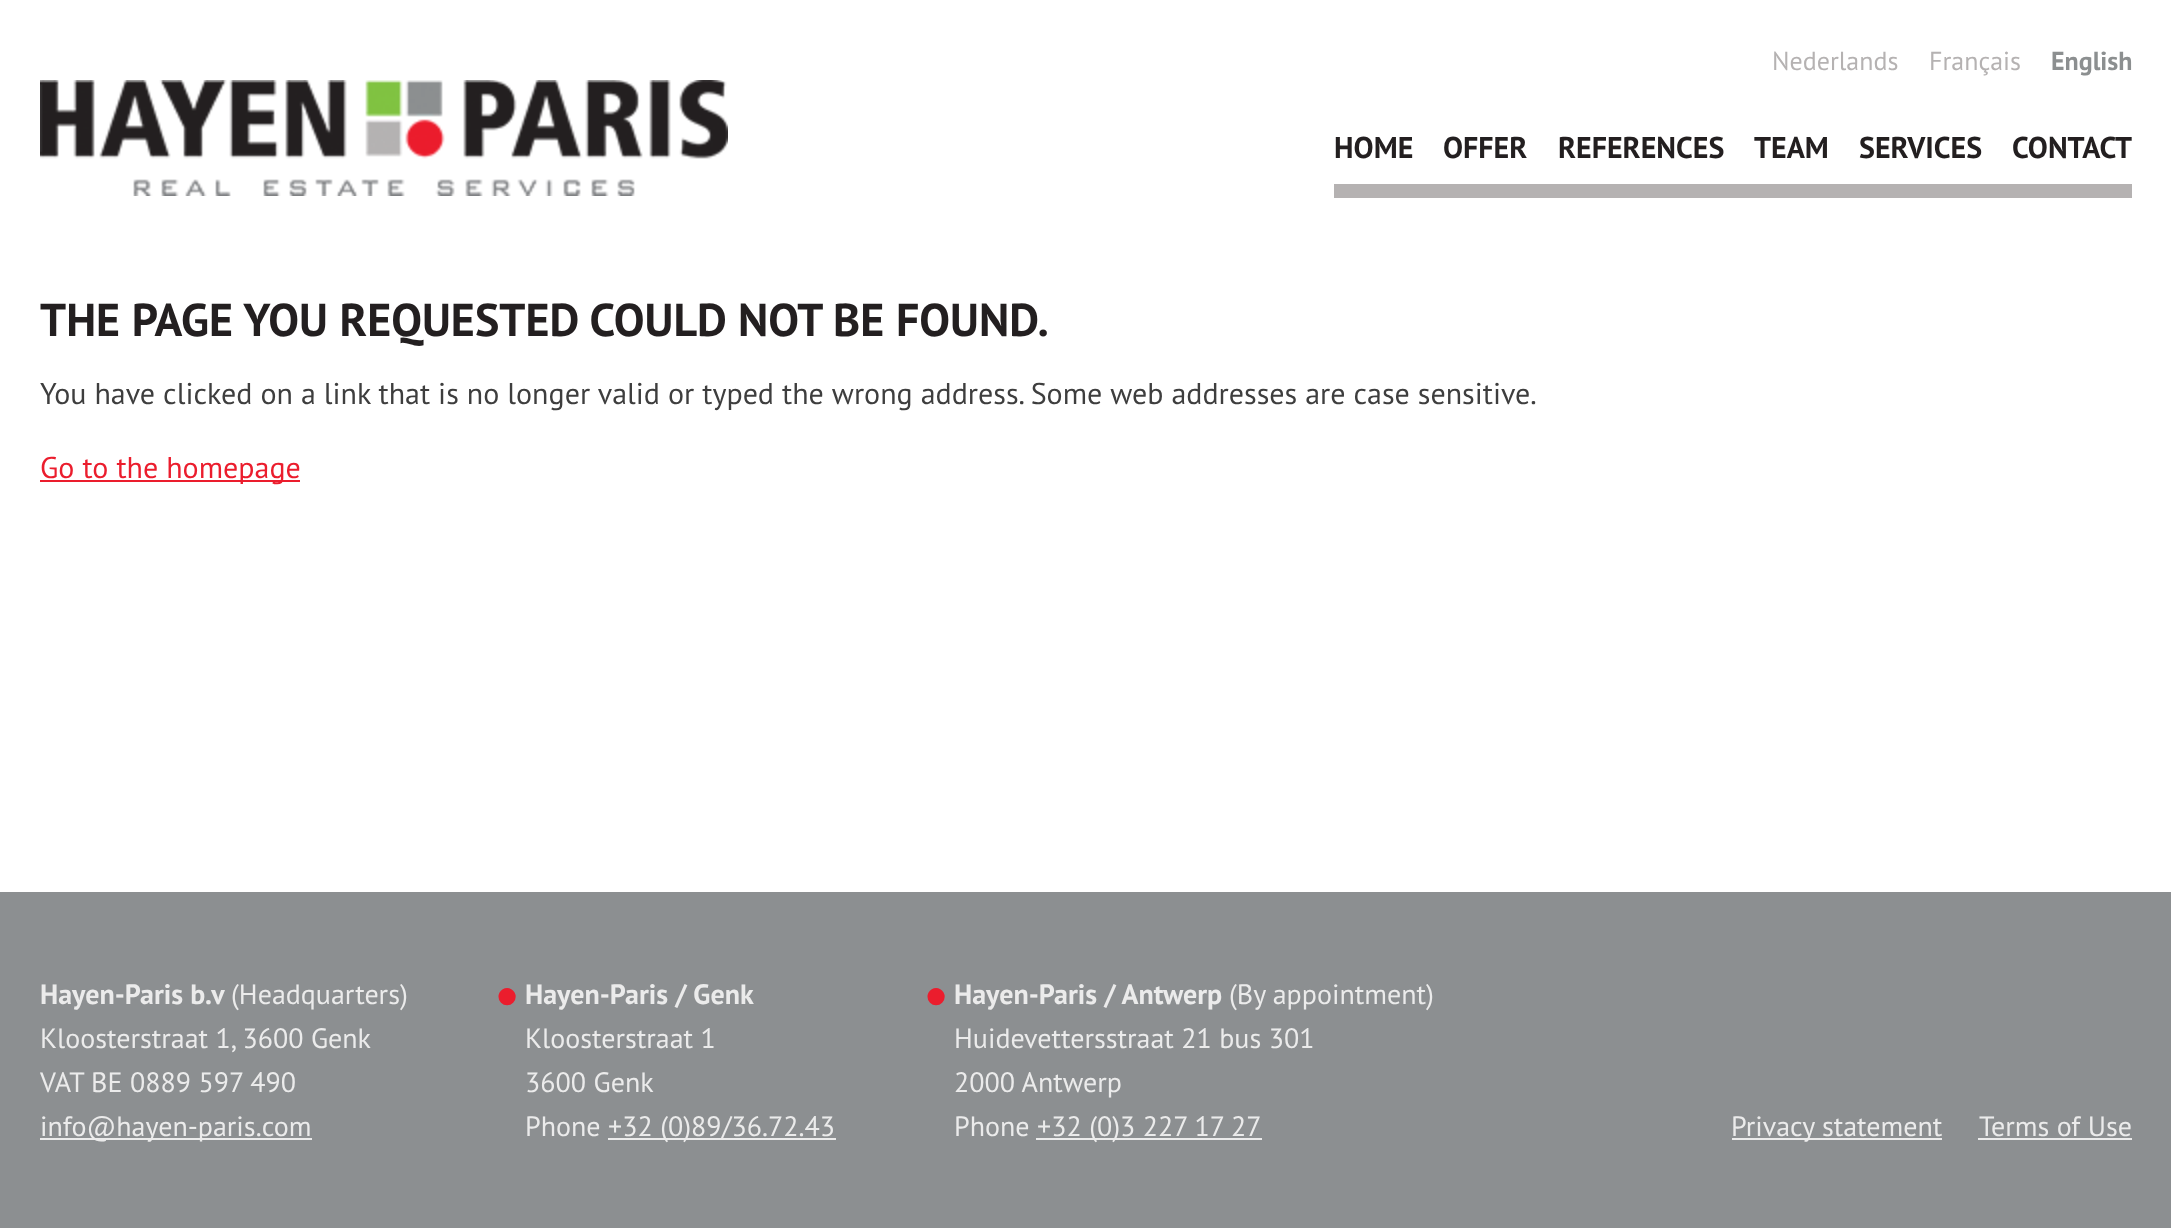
<svg xmlns="http://www.w3.org/2000/svg" width="2171" height="1228">
	<rect width="100%" height="100%" fill="#FFFFFF" />
	<g font-family="PT Sans" font-size="26" fill="#B5B2B2">
		<text x="1772" y="70">Nederlands</text>
		<text x="1929" y="70">Français</text>
	</g>
	<text x="2051" y="70" font-family="PT Sans" font-size="26" font-weight="700" fill="#8C8F90">English</text>
	<image x="40" y="80" width="688" height="116" href="assets/img1.png" />
	<rect x="1334" y="184" width="798" height="14" fill="#B5B2B2" />
	<g font-family="PT Sans" font-size="30" font-weight="700" fill="#231F20">
		<text x="1334" y="158">HOME</text>
		<text x="1443" y="158">OFFER</text>
		<text x="1558" y="158">REFERENCES</text>
		<text x="1754" y="158">TEAM</text>
		<text x="1859" y="158">SERVICES</text>
		<text x="2012" y="158">CONTACT</text>
	</g>
	<text x="40" y="336" font-family="PT Sans" font-size="46" font-weight="700" fill="#231F20">THE PAGE YOU REQUESTED COULD NOT BE FOUND.</text>
	<text x="40" y="404" font-family="PT Sans" font-size="30" fill="#3E3E3E">You have clicked on a link that is no longer valid or typed the wrong address. Some web addresses are case sensitive.</text>
	<rect x="40" y="480" width="260" height="2" fill="#EB1D2D" />
	<text x="40" y="478" font-family="PT Sans" font-size="30" fill="#EB1D2D">Go to the homepage</text>
	<rect x="0" y="892" width="2171" height="336" fill="#8C8F91" />
	<text x="40" y="1004" font-family="PT Sans" font-size="28" font-weight="700" fill="#EBEBEB">Hayen-Paris b.v</text>
	<g font-family="PT Sans" font-size="28" fill="#EBEBEB">
		<text x="231" y="1004">(Headquarters)</text>
		<text x="40" y="1048">Kloosterstraat 1, 3600 Genk</text>
		<text x="40" y="1092">VAT BE 0889 597 490</text>
	</g>
	<rect x="40" y="1138" width="272" height="2" fill="#EBEBEB" />
	<text x="40" y="1136" font-family="PT Sans" font-size="28" fill="#EBEBEB">info@hayen-paris.com</text>
	<text x="495" y="1008" font-family="Liberation Sans" font-size="40" font-weight="700" fill="#EB1D2D">●</text>
	<text x="525" y="1004" font-family="PT Sans" font-size="28" font-weight="700" fill="#EBEBEB">Hayen-Paris / Genk</text>
	<g font-family="PT Sans" font-size="28" fill="#EBEBEB">
		<text x="525" y="1048">Kloosterstraat 1</text>
		<text x="525" y="1092">3600 Genk</text>
		<text x="525" y="1136">Phone</text>
	</g>
	<rect x="608" y="1138" width="228" height="2" fill="#EBEBEB" />
	<text x="608" y="1136" font-family="PT Sans" font-size="28" fill="#EBEBEB">+32 (0)89/36.72.43</text>
	<text x="924" y="1008" font-family="Liberation Sans" font-size="40" font-weight="700" fill="#EB1D2D">●</text>
	<text x="954" y="1004" font-family="PT Sans" font-size="28" font-weight="700" fill="#EBEBEB">Hayen-Paris / Antwerp</text>
	<g font-family="PT Sans" font-size="28" fill="#EBEBEB">
		<text x="1229" y="1004">(By appointment)</text>
		<text x="954" y="1048">Huidevettersstraat 21 bus 301</text>
		<text x="954" y="1092">2000 Antwerp</text>
		<text x="954" y="1136">Phone</text>
	</g>
	<rect x="1036" y="1138" width="226" height="2" fill="#EBEBEB" />
	<text x="1037" y="1136" font-family="PT Sans" font-size="28" fill="#EBEBEB">+32 (0)3 227 17 27</text>
	<rect x="1732" y="1138" width="210" height="2" fill="#EBEBEB" />
	<g font-family="PT Sans" font-size="28" fill="#EBEBEB">
		<text x="1731" y="1136">Privacy statement</text>
		<text x="1979" y="1136">Terms of Use</text>
	</g>
	<rect x="1978" y="1138" width="154" height="2" fill="#EBEBEB" />
</svg>
